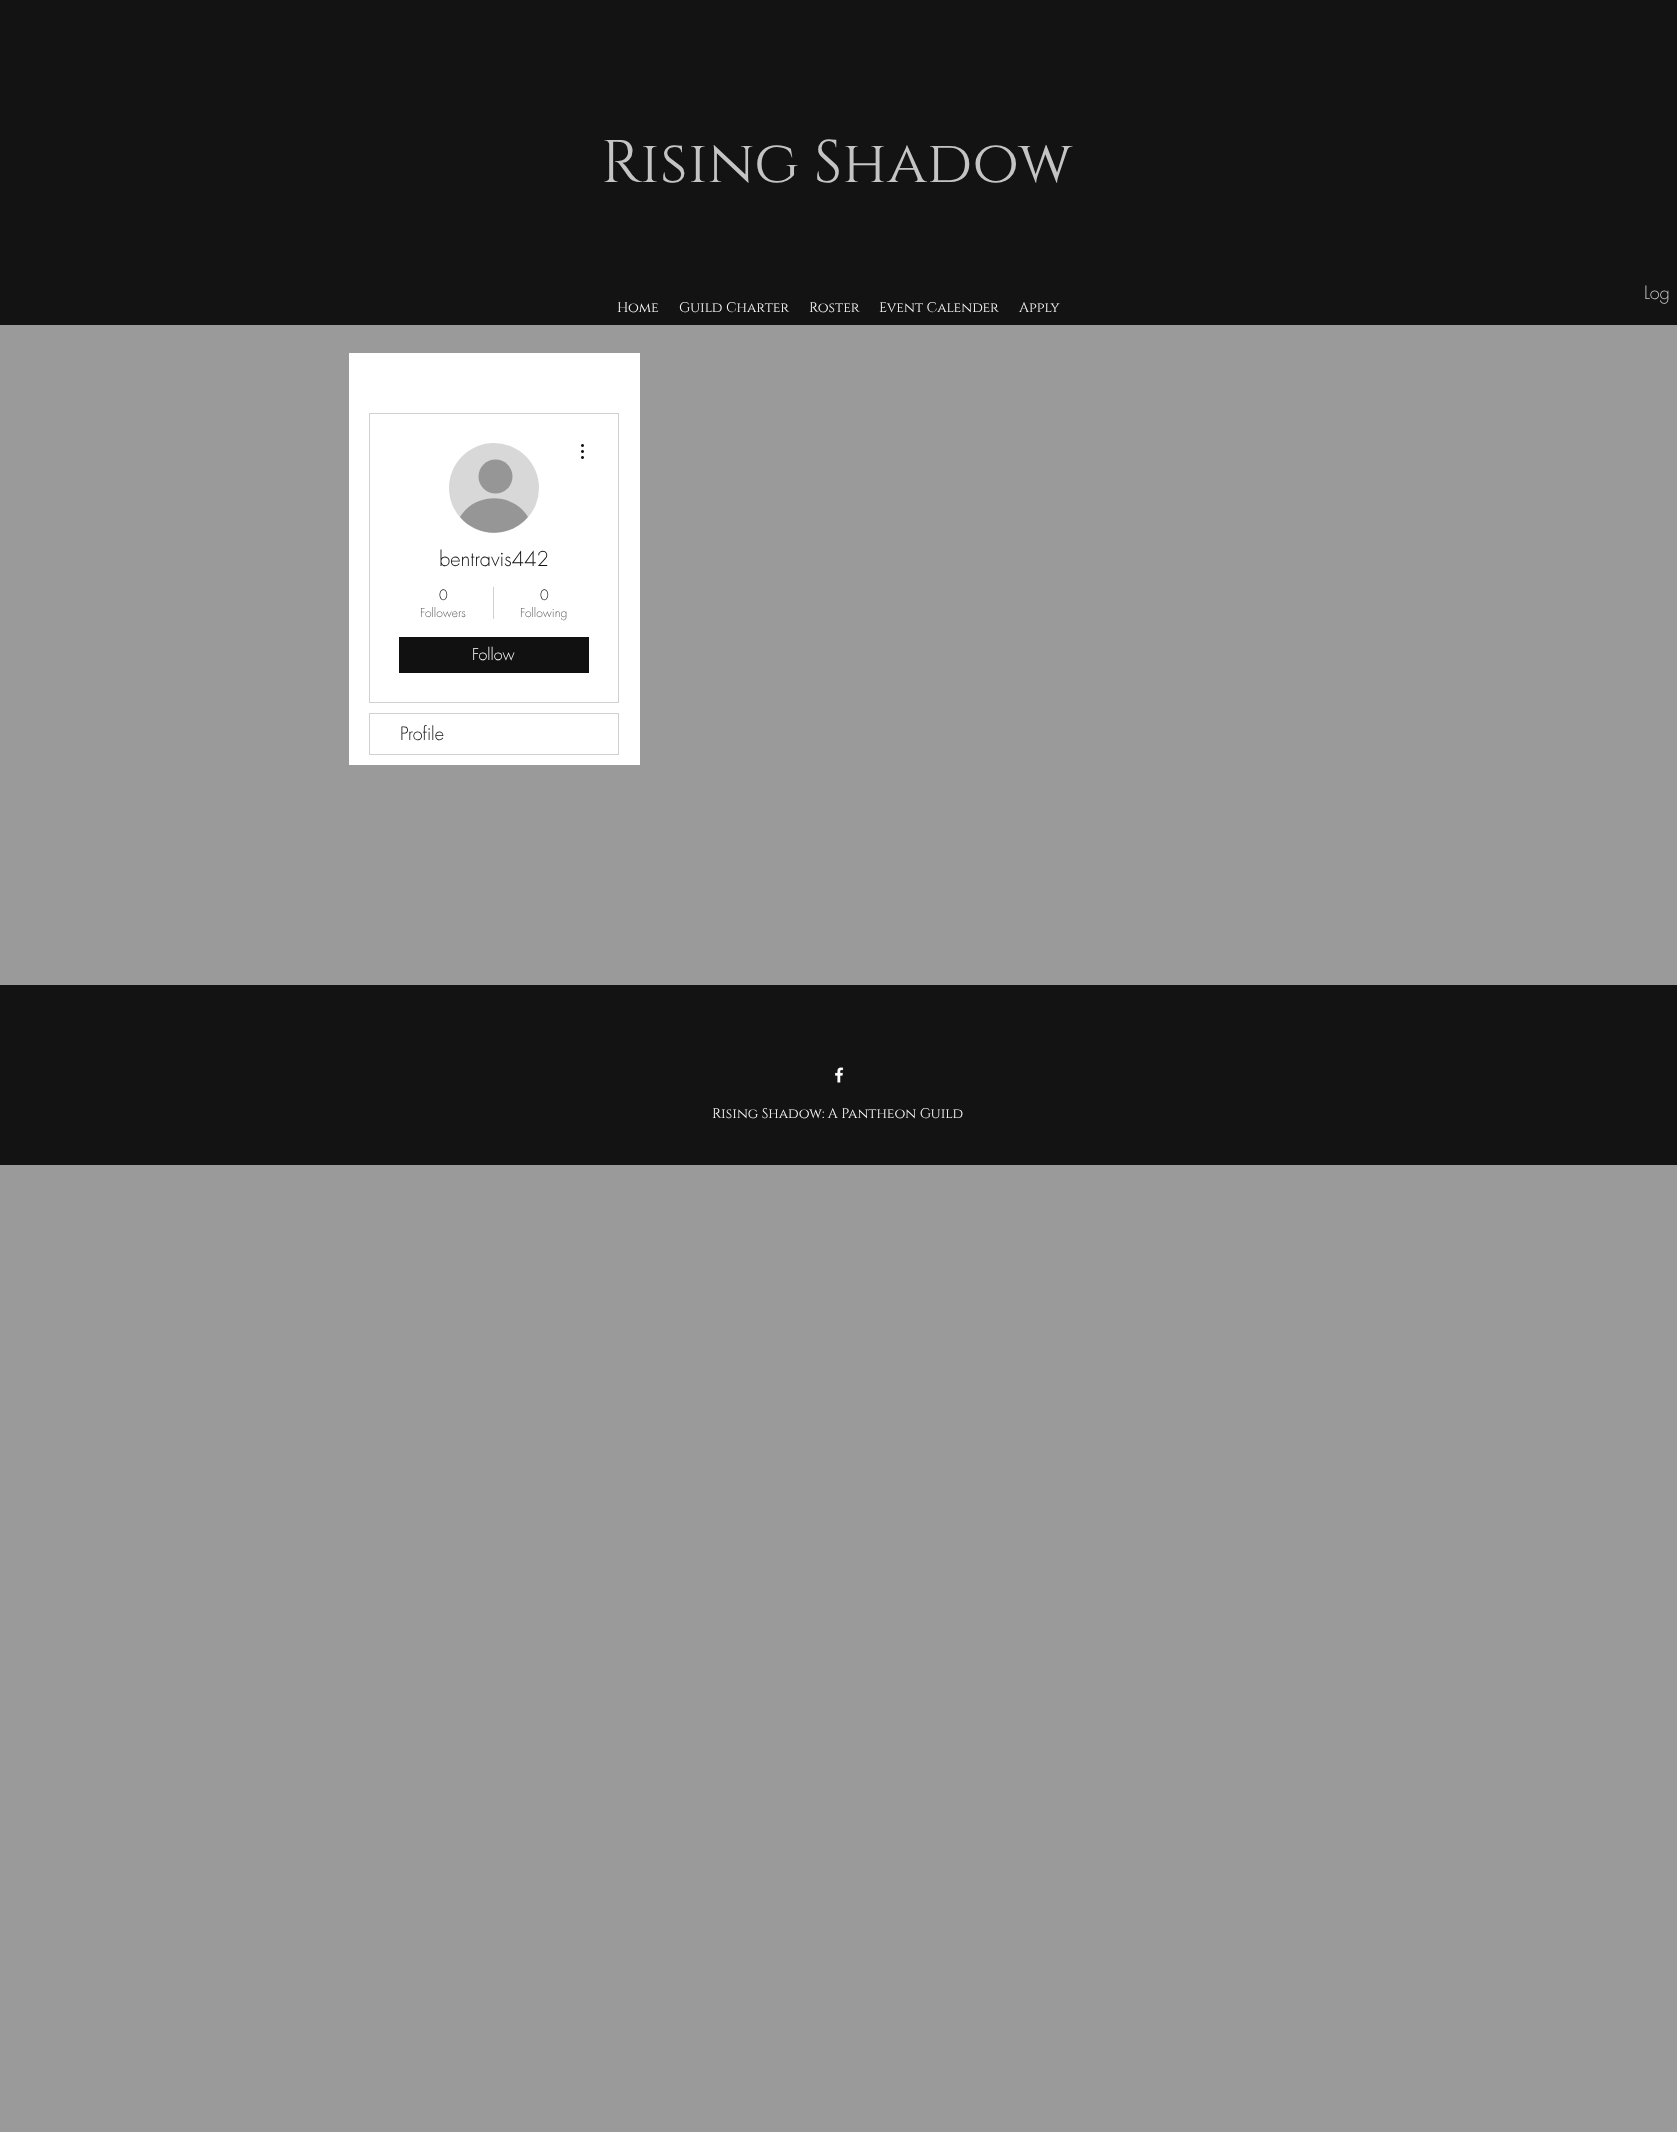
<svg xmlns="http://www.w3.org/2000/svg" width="1677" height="2132">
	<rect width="100%" height="100%" fill="#9A9A9A" />
	<rect x="0" y="0" width="1677" height="325" fill="#131313" />
	<text x="601" y="182" font-family="Cinzel" font-size="60" fill="#C4C4C4">Rising Shadow</text>
	<text x="1644" y="299" font-family="futura" font-size="18" font-weight="300" fill="#C4C4C4">Log</text>
	<g font-family="Cinzel" font-size="14" fill="#FFFFFF">
		<text x="617" y="312">Home</text>
		<text x="679" y="312">Guild Charter</text>
		<text x="809" y="312">Roster</text>
		<text x="879" y="312">Event Calender</text>
		<text x="1019" y="312">Apply</text>
	</g>
	<rect x="349" y="353" width="291" height="412" fill="#FFFFFF" />
	<rect x="369.5" y="413.5" width="249" height="289" fill="none" stroke="#D0D0D0" />
	<circle cx="494" cy="488" r="45" fill="#D8D8D8" />
	<circle cx="495.5" cy="476.5" r="17" fill="#969696" />
	<path d="M528 517C510 538 478 538 460 517C475 492 513 492 528 517Z" fill="#969696" />
	<image x="581" y="444" width="3" height="15" href="assets/img1.png" />
	<text x="439" y="566" font-family="futura" font-size="20" font-weight="300" fill="#131313">bentravis442</text>
	<text x="439" y="600" font-family="futura" font-size="14" font-weight="300" fill="#131313">0</text>
	<text x="420" y="617" font-family="futura" font-size="12" font-weight="300" fill="#5A5A5A">Followers</text>
	<rect x="493" y="587" width="1" height="32" fill="#D0D0D0" />
	<text x="540" y="600" font-family="futura" font-size="14" font-weight="300" fill="#131313">0</text>
	<text x="520" y="617" font-family="futura" font-size="12" font-weight="300" fill="#5A5A5A">Following</text>
	<rect x="399" y="637" width="190" height="36" fill="#111111" />
	<text x="472" y="660" font-family="futura" font-size="16" font-weight="300" fill="#FFFFFF">Follow</text>
	<rect x="369.5" y="713.5" width="249" height="41" fill="none" stroke="#D0D0D0" />
	<text x="400" y="740" font-family="futura" font-size="18" font-weight="300" fill="#131313">Profile</text>
	<rect x="0" y="985" width="1677" height="180" fill="#131313" />
	<image x="835" y="1067" width="9" height="16" href="assets/img2.png" />
	<text x="712" y="1118" font-family="Cinzel" font-size="14" fill="#FFFFFF">Rising Shadow: A Pantheon Guild</text>
</svg>
